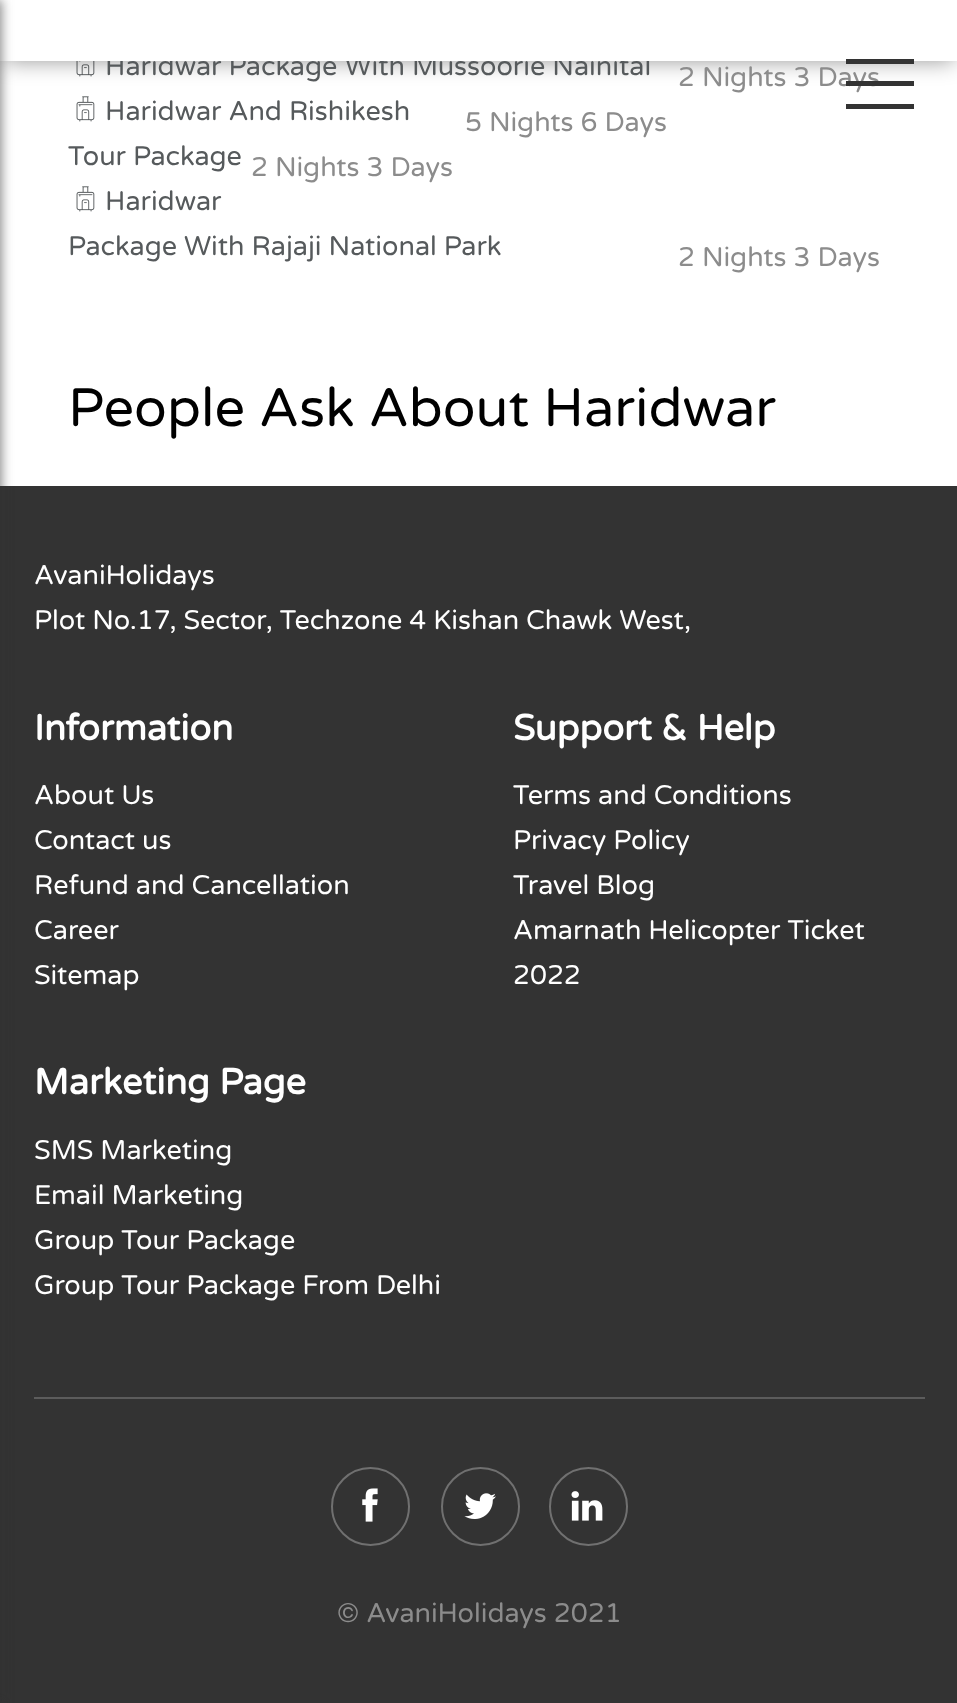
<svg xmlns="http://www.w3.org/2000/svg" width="957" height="1703">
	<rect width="100%" height="100%" fill="#333333" />
	<rect x="0" y="61" width="957" height="425" fill="#FFFFFF" />
	<image x="76" y="61" width="19" height="16" href="assets/img1.png" />
	<rect x="5" y="9" width="949" height="52" fill="#000000" fill-opacity="0.41" filter="blur(11px)" />
	<text x="105" y="75" font-family="Varela Round" font-size="27" fill="#565A5C">Haridwar Package With Mussoorie Nainital</text>
	<rect x="0" y="0" width="957" height="61" fill="#FFFFFF" />
	<rect x="-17" y="0" width="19" height="1703" fill="#323232" fill-opacity="0.55" filter="blur(5.5px)" />
	<text x="678" y="86" font-family="Varela Round" font-size="27" fill="#8C8C8C">2 Nights 3 Days</text>
	<rect x="846" y="81" width="68" height="5" fill="#333333" />
	<rect x="846" y="59" width="68" height="5" fill="#333333" />
	<rect x="846" y="104" width="68" height="5" fill="#333333" />
	<text x="465" y="131" font-family="Varela Round" font-size="27" fill="#8C8C8C">5 Nights 6 Days</text>
	<image x="76" y="96" width="19" height="26" href="assets/img2.png" />
	<g font-family="Varela Round" font-size="27" fill="#565A5C">
		<text x="105" y="120">Haridwar And Rishikesh</text>
		<text x="68" y="165">Tour Package</text>
	</g>
	<text x="251" y="176" font-family="Varela Round" font-size="27" fill="#8C8C8C">2 Nights 3 Days</text>
	<image x="76" y="186" width="19" height="26" href="assets/img2.png" />
	<g font-family="Varela Round" font-size="27" fill="#565A5C">
		<text x="105" y="210">Haridwar</text>
		<text x="68" y="255">Package With Rajaji National Park</text>
	</g>
	<text x="678" y="266" font-family="Varela Round" font-size="27" fill="#8C8C8C">2 Nights 3 Days</text>
	<text x="68" y="426" font-family="Varela Round" font-size="54" fill="#000000">People Ask About Haridwar</text>
	<g font-family="Varela Round" font-size="27" fill="#FFFFFF">
		<text x="34" y="584">AvaniHolidays</text>
		<text x="34" y="629">Plot No.17, Sector, Techzone 4 Kishan Chawk West,</text>
	</g>
	<text x="34" y="740" font-family="Varela Round" font-size="36" font-weight="700" fill="#FFFFFF">Information</text>
	<g font-family="Varela Round" font-size="27" fill="#FFFFFF">
		<text x="34" y="804">About Us</text>
		<text x="34" y="849">Contact us</text>
		<text x="34" y="894">Refund and Cancellation</text>
		<text x="34" y="939">Career</text>
		<text x="34" y="984">Sitemap</text>
	</g>
	<text x="513" y="740" font-family="Varela Round" font-size="36" font-weight="700" fill="#FFFFFF">Support &amp; Help</text>
	<g font-family="Varela Round" font-size="27" fill="#FFFFFF">
		<text x="513" y="804">Terms and Conditions</text>
		<text x="513" y="849">Privacy Policy</text>
		<text x="513" y="894">Travel Blog</text>
		<text x="513" y="939">Amarnath Helicopter Ticket</text>
		<text x="513" y="984">2022</text>
	</g>
	<text x="34" y="1094" font-family="Varela Round" font-size="36" font-weight="700" fill="#FFFFFF">Marketing Page</text>
	<g font-family="Varela Round" font-size="27" fill="#FFFFFF">
		<text x="34" y="1159">SMS Marketing</text>
		<text x="34" y="1204">Email Marketing</text>
		<text x="34" y="1249">Group Tour Package</text>
		<text x="34" y="1294">Group Tour Package From Delhi</text>
	</g>
	<rect x="34" y="1397" width="891" height="2" fill="#5C5C5C" />
	<circle cx="370.5" cy="1506.5" r="38.5" fill="none" stroke="#707070" stroke-width="2" />
	<image x="362" y="1488" width="16" height="34" href="assets/img3.png" />
	<circle cx="480.5" cy="1506.5" r="38.5" fill="none" stroke="#707070" stroke-width="2" />
	<image x="464" y="1493" width="32" height="26" href="assets/img4.png" />
	<circle cx="588.5" cy="1506.5" r="38.5" fill="none" stroke="#707070" stroke-width="2" />
	<image x="571" y="1491" width="32" height="30" href="assets/img5.png" />
	<text x="337" y="1622" font-family="Varela Round" font-size="27" fill="#8C8C8C">© AvaniHolidays 2021</text>
</svg>
